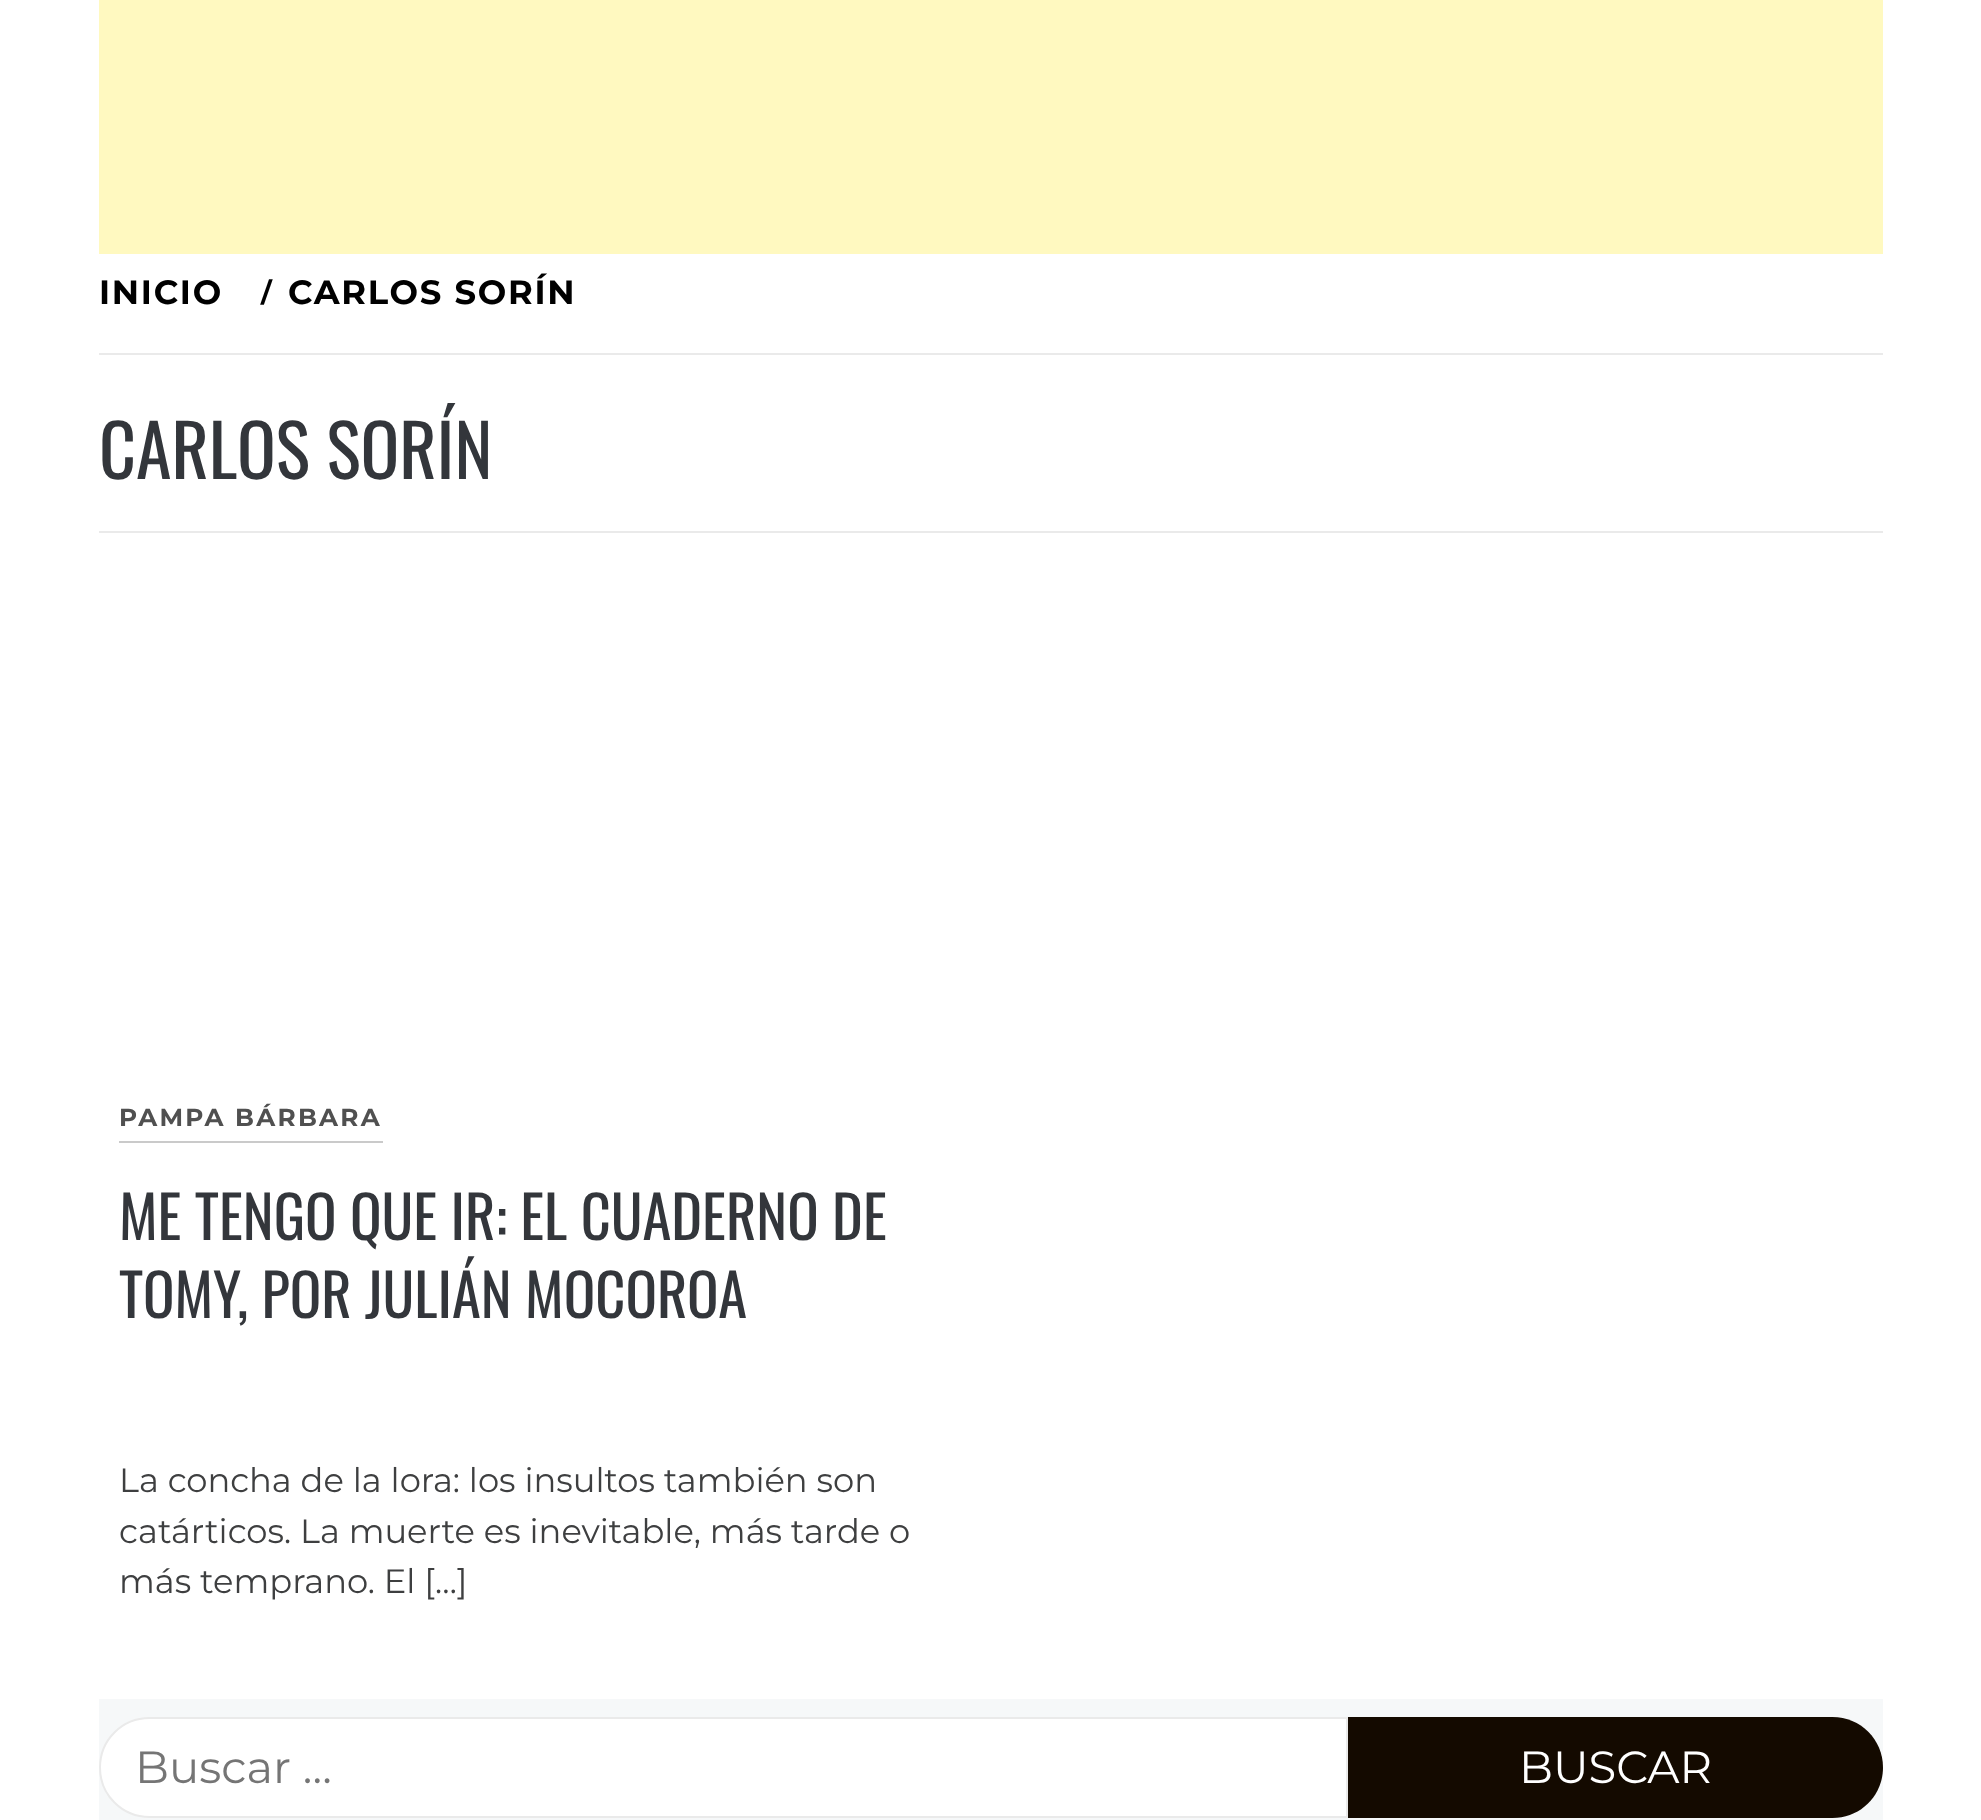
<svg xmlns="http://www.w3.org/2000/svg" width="1981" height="1820">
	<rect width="100%" height="100%" fill="#FFFFFF" />
	<rect x="99" y="0" width="1784" height="254" fill="#FFF9C0" />
	<rect x="99" y="531" width="1784" height="2" fill="#EAEAEA" />
	<rect x="99" y="353" width="1784" height="2" fill="#EAEAEA" />
	<text x="99" y="304" font-family="Montserrat" font-size="33.75" font-weight="700" letter-spacing="1.75" fill="#000000">INICIO</text>
	<text x="261" y="302" font-family="Montserrat" font-size="27" font-weight="700" letter-spacing="1.75" fill="#000000">/</text>
	<text x="288" y="304" font-family="Montserrat" font-size="33.75" font-weight="700" letter-spacing="1.75" fill="#000000">CARLOS SORÍN</text>
	<text x="99" y="479" font-family="Oswald" font-size="72" fill="#33363B">CARLOS SORÍN</text>
	<rect x="119" y="1141" width="264" height="2" fill="#CACACA" />
	<text x="119" y="1126" font-family="Montserrat" font-size="24.75" font-weight="700" letter-spacing="2.25" fill="#505050">PAMPA BÁRBARA</text>
	<g font-family="Oswald" font-size="58.5" fill="#33363B">
		<text x="119" y="1240">ME TENGO QUE IR: EL CUADERNO DE</text>
		<text x="119" y="1318">TOMY, POR JULIÁN MOCOROA</text>
	</g>
	<g font-family="Montserrat" font-size="33.75" fill="#3E3F40">
		<text x="119" y="1492">La concha de la lora: los insultos también son</text>
		<text x="119" y="1543">catárticos. La muerte es inevitable, más tarde o</text>
		<text x="119" y="1593">más temprano. El […]</text>
	</g>
	<rect x="99" y="1699" width="1784" height="121" fill="#F6F8F9" />
	<path d="M149.5 1718H1347V1817H149.5C122 1817 100 1795 100 1767.5C100 1740 122 1718 149.5 1718Z" fill="#FFFFFF" stroke="#EAEAEA" stroke-width="2" />
	<text x="135" y="1783" font-family="Montserrat" font-size="45" fill="#757575">Buscar …</text>
	<path d="M1348 1717H1832.5C1860.5 1717 1883 1739.5 1883 1767.5C1883 1795.5 1860.5 1818 1832.5 1818H1348Z" fill="#140A00" />
	<text x="1519" y="1783" font-family="Montserrat" font-size="45" fill="#FFFFFF">BUSCAR</text>
</svg>
